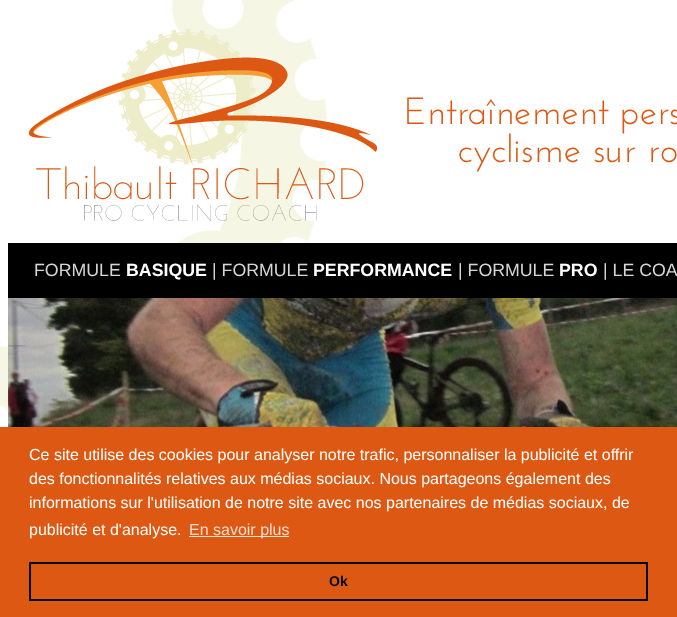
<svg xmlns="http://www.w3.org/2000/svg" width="677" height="617">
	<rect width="100%" height="100%" fill="#FFFFFF" />
	<image x="0" y="0" width="327" height="412" href="assets/img1.png" />
	<image x="29" y="29" width="348" height="193" href="assets/img2.png" />
	<g font-family="Josefin Sans" font-size="38" fill="#DD5812">
		<text x="404" y="124">Entraînement pers</text>
		<text x="458" y="162">cyclisme sur ro</text>
	</g>
	<rect x="8" y="243" width="669" height="55" fill="#000000" />
	<text x="34" y="276" font-family="Liberation Sans" font-size="17.75" fill="#D6D6D6">FORMULE</text>
	<text x="126" y="276" font-family="Liberation Sans" font-size="17.75" font-weight="700" fill="#FFFFFF">BASIQUE</text>
	<text x="212" y="276" font-family="Liberation Sans" font-size="17.75" fill="#D6D6D6">| FORMULE</text>
	<text x="313" y="276" font-family="Liberation Sans" font-size="17.75" font-weight="700" fill="#FFFFFF">PERFORMANCE</text>
	<text x="458" y="276" font-family="Liberation Sans" font-size="17.75" fill="#D6D6D6">| FORMULE</text>
	<text x="559" y="276" font-family="Liberation Sans" font-size="17.75" font-weight="700" fill="#FFFFFF">PRO</text>
	<text x="603" y="276" font-family="Liberation Sans" font-size="17.75" fill="#D6D6D6">| LE COA</text>
	<image x="8" y="298" width="669" height="129" href="assets/img3.png" />
	<rect x="0" y="427" width="677" height="190" fill="#DD5812" />
	<g font-family="Liberation Sans" font-size="16" fill="#FFFFFF">
		<text x="29" y="460">Ce site utilise des cookies pour analyser notre trafic, personnaliser la publicité et offrir</text>
		<text x="29" y="484">des fonctionnalités relatives aux médias sociaux. Nous partageons également des</text>
		<text x="29" y="508">informations sur l'utilisation de notre site avec nos partenaires de médias sociaux, de</text>
		<text x="29" y="535">publicité et d'analyse.</text>
	</g>
	<rect x="189" y="536" width="100" height="1" fill="#F8DED0" />
	<text x="189" y="535" font-family="Liberation Sans" font-size="16" fill="#F8DED0">En savoir plus</text>
	<rect x="30" y="563" width="617" height="37" fill="none" stroke="#000000" stroke-width="2" />
	<text x="329" y="586" font-family="Liberation Sans" font-size="14" font-weight="700" fill="#000000">Ok</text>
</svg>
